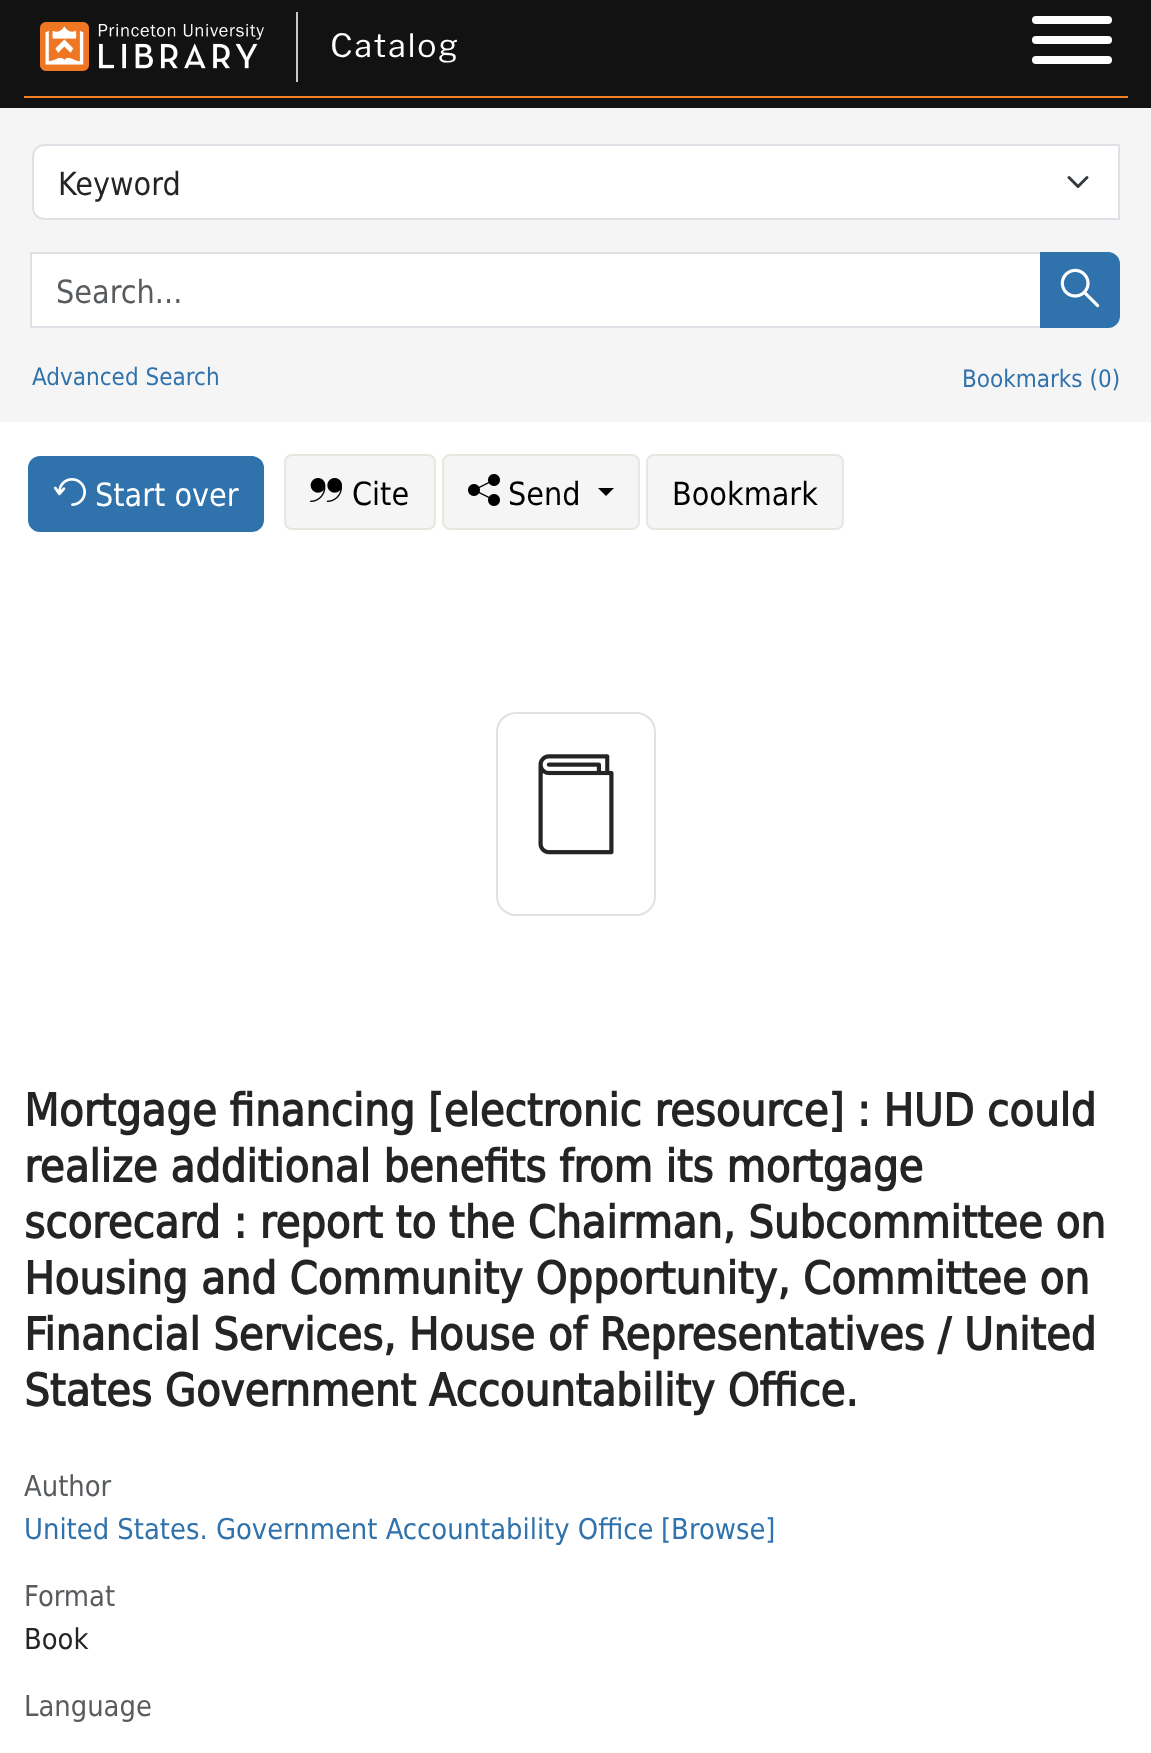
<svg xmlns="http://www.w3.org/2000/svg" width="1151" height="1753">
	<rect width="100%" height="100%" fill="#F5F5F5" />
	<rect x="0" y="0" width="1151" height="108" fill="#121212" />
	<rect x="24" y="96" width="1104" height="2" fill="#F58025" />
	<image x="40" y="22" width="224" height="49" href="assets/img1.png" />
	<rect x="296" y="12" width="2" height="70" fill="#C5C8CE" />
	<text x="330" y="57" font-family="Libre Franklin" font-size="32" letter-spacing="2" fill="#FFFFFF">Catalog</text>
	<rect x="1032" y="36" width="80" height="8" rx="4" fill="#FFFFFF" />
	<rect x="1032" y="16" width="80" height="8" rx="4" fill="#FFFFFF" />
	<rect x="1032" y="56" width="80" height="8" rx="4" fill="#FFFFFF" />
	<path d="M44 144H1120V220H44C37.5 220 32 214.5 32 208V156C32 149.5 37.5 144 44 144Z" fill="#FFFFFF" />
	<path d="M1069 177.5L1078 186.5L1087 177.5" fill="none" stroke="#343A40" stroke-width="3" stroke-linecap="round" stroke-linejoin="round" />
	<path d="M44 145H1119V219H44C38 219 33 214 33 208V156C33 150 38 145 44 145Z" fill="none" stroke="#DEE2E6" stroke-width="2" />
	<text x="58" y="195" font-family="DejaVu Sans" font-size="32" fill="#242424">Keyword</text>
	<rect x="31" y="253" width="1010" height="74" fill="#FFFFFF" stroke="#DEE2E6" stroke-width="2" />
	<text x="56" y="303" font-family="DejaVu Sans" font-size="32" fill="#595C5F">Search...</text>
	<path d="M1041 253H1108C1114 253 1119 258 1119 264V316C1119 322 1114 327 1108 327H1041Z" fill="#3072AB" stroke="#3072AB" stroke-width="2" />
	<image x="1060" y="268" width="40" height="40" href="assets/img2.png" />
	<g font-family="DejaVu Sans" font-size="24" fill="#3072AB">
		<text x="32" y="385">Advanced Search</text>
		<text x="962" y="387">Bookmarks (0)</text>
	</g>
	<rect x="0" y="422" width="1151" height="1331" fill="#FFFFFF" />
	<rect x="29" y="457" width="234" height="74" rx="11" fill="#3072AB" stroke="#3072AB" stroke-width="2" />
	<image x="54" y="478" width="32" height="28" href="assets/img3.png" />
	<text x="95" y="506" font-family="DejaVu Sans" font-size="32" fill="#FFFFFF">Start over</text>
	<rect x="285" y="455" width="150" height="74" rx="7" fill="#F5F5F5" stroke="#E8E6DF" stroke-width="2" />
	<image x="310" y="478" width="32" height="24" href="assets/img4.png" />
	<text x="352" y="505" font-family="DejaVu Sans" font-size="32" fill="#000000">Cite</text>
	<rect x="443" y="455" width="196" height="74" rx="7" fill="#F5F5F5" stroke="#E8E6DF" stroke-width="2" />
	<image x="468" y="474" width="32" height="32" href="assets/img5.png" />
	<text x="508" y="505" font-family="DejaVu Sans" font-size="32" fill="#000000">Send</text>
	<path d="M598 488H614L606 496Z" fill="#000000" />
	<rect x="647" y="455" width="196" height="74" rx="7" fill="#F5F5F5" stroke="#E8E6DF" stroke-width="2" />
	<text x="672" y="505" font-family="DejaVu Sans" font-size="32" fill="#000000">Bookmark</text>
	<rect x="497" y="713" width="158" height="202" rx="19" fill="none" stroke="#E1E1E1" stroke-width="2" />
	<image x="538" y="754" width="76" height="101" href="assets/img6.png" />
	<g font-family="DejaVu Sans" font-size="44.8" font-weight="700" fill="#242424">
		<text x="24" y="1126">Mortgage financing [electronic resource] : HUD could</text>
		<text x="24" y="1182">realize additional benefits from its mortgage</text>
		<text x="24" y="1238">scorecard : report to the Chairman, Subcommittee on</text>
		<text x="24" y="1294">Housing and Community Opportunity, Committee on</text>
		<text x="24" y="1350">Financial Services, House of Representatives / United</text>
		<text x="24" y="1406">States Government Accountability Office.</text>
	</g>
	<text x="24" y="1496" font-family="DejaVu Sans" font-size="28.8" fill="#595C5F">Author</text>
	<g font-family="DejaVu Sans" font-size="28.8" fill="#3072AB">
		<text x="24" y="1539">United States. Government Accountability Office</text>
		<text x="661" y="1539">[Browse]</text>
	</g>
	<text x="24" y="1606" font-family="DejaVu Sans" font-size="28.8" fill="#595C5F">Format</text>
	<text x="24" y="1649" font-family="DejaVu Sans" font-size="28.8" fill="#242424">Book</text>
	<text x="24" y="1716" font-family="DejaVu Sans" font-size="28.8" fill="#595C5F">Language</text>
</svg>
